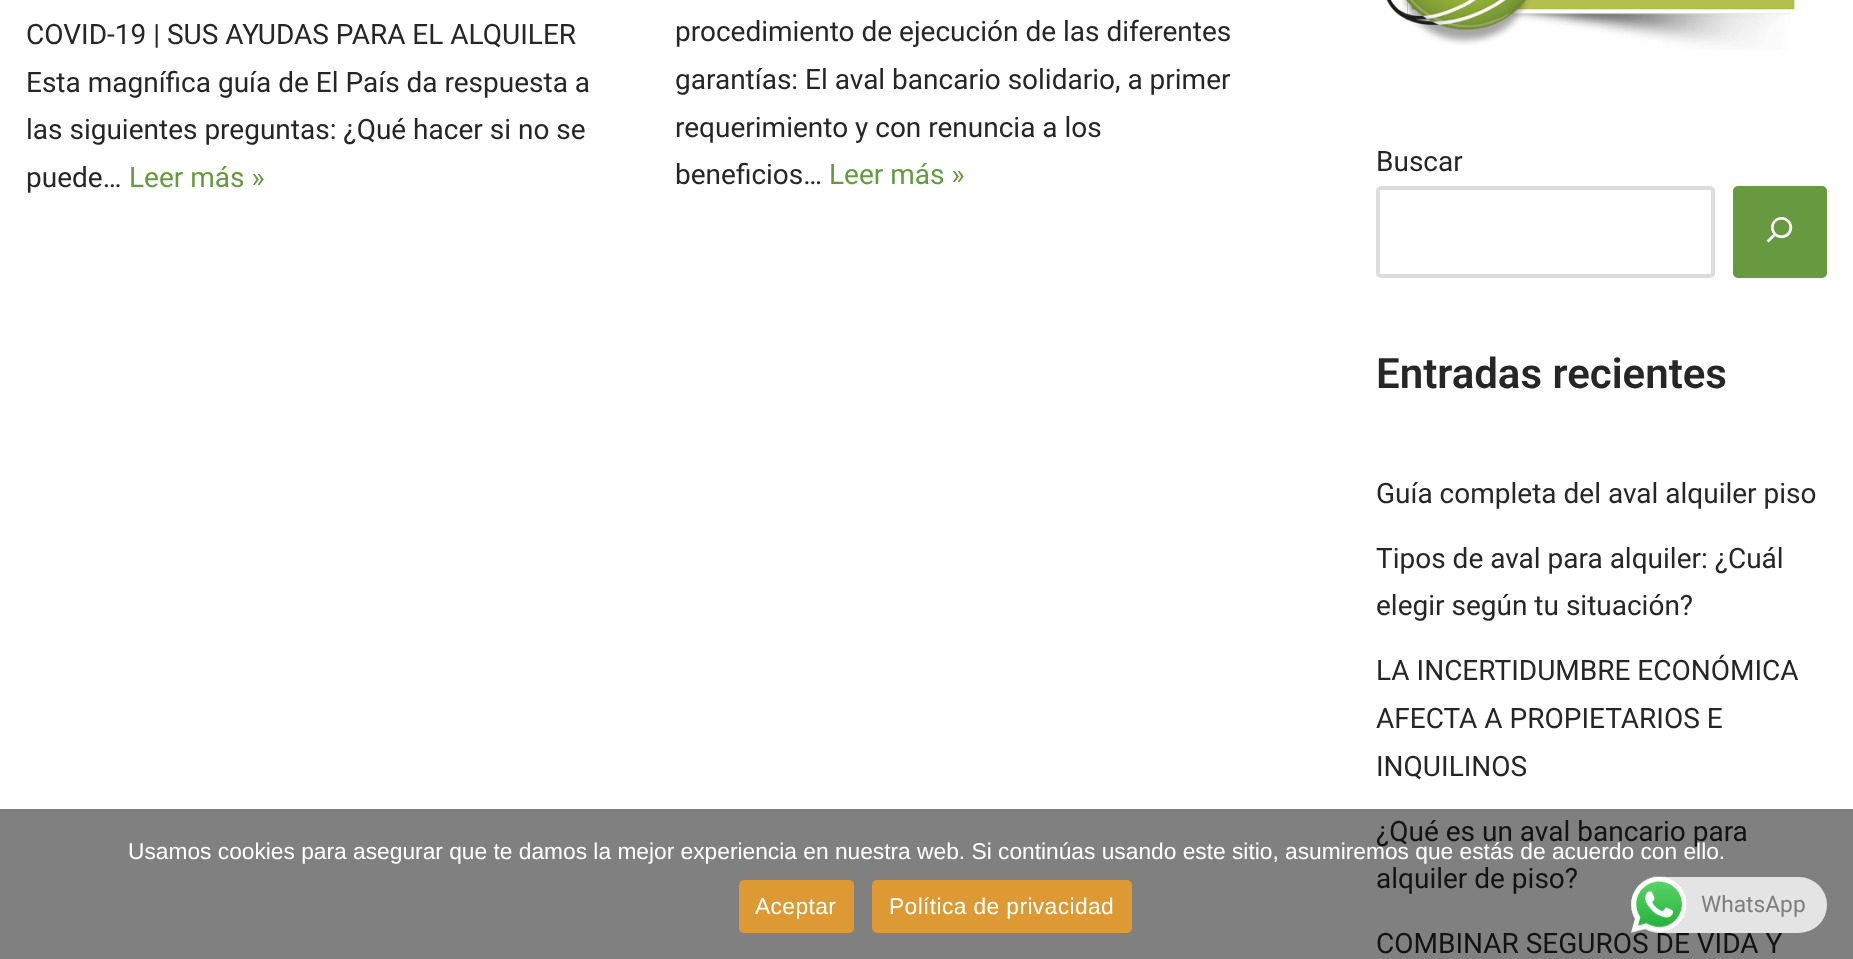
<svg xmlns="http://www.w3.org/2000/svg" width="1853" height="959">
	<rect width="100%" height="100%" fill="#FFFFFF" />
	<rect x="0" y="809" width="1853" height="150" fill="#808080" />
	<g font-family="Roboto" font-size="28" fill="#272626">
		<text x="26" y="44">COVID-19 | SUS AYUDAS PARA EL ALQUILER</text>
		<text x="26" y="92">Esta magnífica guía de El País da respuesta a</text>
		<text x="26" y="139">las siguientes preguntas: ¿Qué hacer si no se</text>
		<text x="26" y="187">puede…</text>
	</g>
	<text x="129" y="187" font-family="Roboto" font-size="28" fill="#679A40">Leer más »</text>
	<g font-family="Roboto" font-size="28" fill="#272626">
		<text x="675" y="41">procedimiento de ejecución de las diferentes</text>
		<text x="675" y="89">garantías: El aval bancario solidario, a primer</text>
		<text x="675" y="137">requerimiento y con renuncia a los</text>
		<text x="675" y="184">beneficios…</text>
	</g>
	<text x="829" y="184" font-family="Roboto" font-size="28" fill="#679A40">Leer más »</text>
	<image x="1386" y="0" width="409" height="50" href="assets/img1.png" />
	<text x="1376" y="171" font-family="Roboto" font-size="28" fill="#272626">Buscar</text>
	<rect x="1378" y="188" width="335" height="88" rx="3" fill="none" stroke="#DDDDDD" stroke-width="4" />
	<rect x="1733" y="186" width="94" height="92" rx="5" fill="#679A40" />
	<image x="1766" y="217" width="27" height="26" href="assets/img2.png" />
	<text x="1376" y="388" font-family="Roboto" font-size="42" font-weight="600" fill="#272626">Entradas recientes</text>
	<g font-family="Roboto" font-size="28" fill="#272626">
		<text x="1376" y="503">Guía completa del aval alquiler piso</text>
		<text x="1376" y="568">Tipos de aval para alquiler: ¿Cuál</text>
		<text x="1376" y="615">elegir según tu situación?</text>
		<text x="1376" y="680">LA INCERTIDUMBRE ECONÓMICA</text>
		<text x="1376" y="728">AFECTA A PROPIETARIOS E</text>
		<text x="1376" y="776">INQUILINOS</text>
	</g>
	<g font-family="Roboto" font-size="28" fill="#141313">
		<text x="1376" y="841">¿Qué es un aval bancario para</text>
		<text x="1376" y="888">alquiler de piso?</text>
		<text x="1376" y="953">COMBINAR SEGUROS DE VIDA Y</text>
	</g>
	<text x="128" y="859" font-family="Liberation Sans" font-size="22.75" fill="#FFFFFF">Usamos cookies para asegurar que te damos la mejor experiencia en nuestra web. Si continúas usando este sitio, asumiremos que estás de acuerdo con ello.</text>
	<rect x="739" y="880" width="115" height="53" rx="5" fill="#DD9933" />
	<text x="755" y="914" font-family="Liberation Sans" font-size="22.75" letter-spacing="0.4" fill="#FFFFFF">Aceptar</text>
	<rect x="872" y="880" width="260" height="53" rx="5" fill="#DD9933" />
	<text x="889" y="914" font-family="Liberation Sans" font-size="22.75" letter-spacing="0.4" fill="#FFFFFF">Política de privacidad</text>
	<rect x="1631" y="877" width="196" height="56" rx="28" fill="#E4E4E4" />
	<image x="1631" y="876" width="56" height="57" href="assets/img3.png" />
	<text x="1701" y="912" font-family="Roboto" font-size="22.75" fill="#7F7D7D">WhatsApp</text>
</svg>
